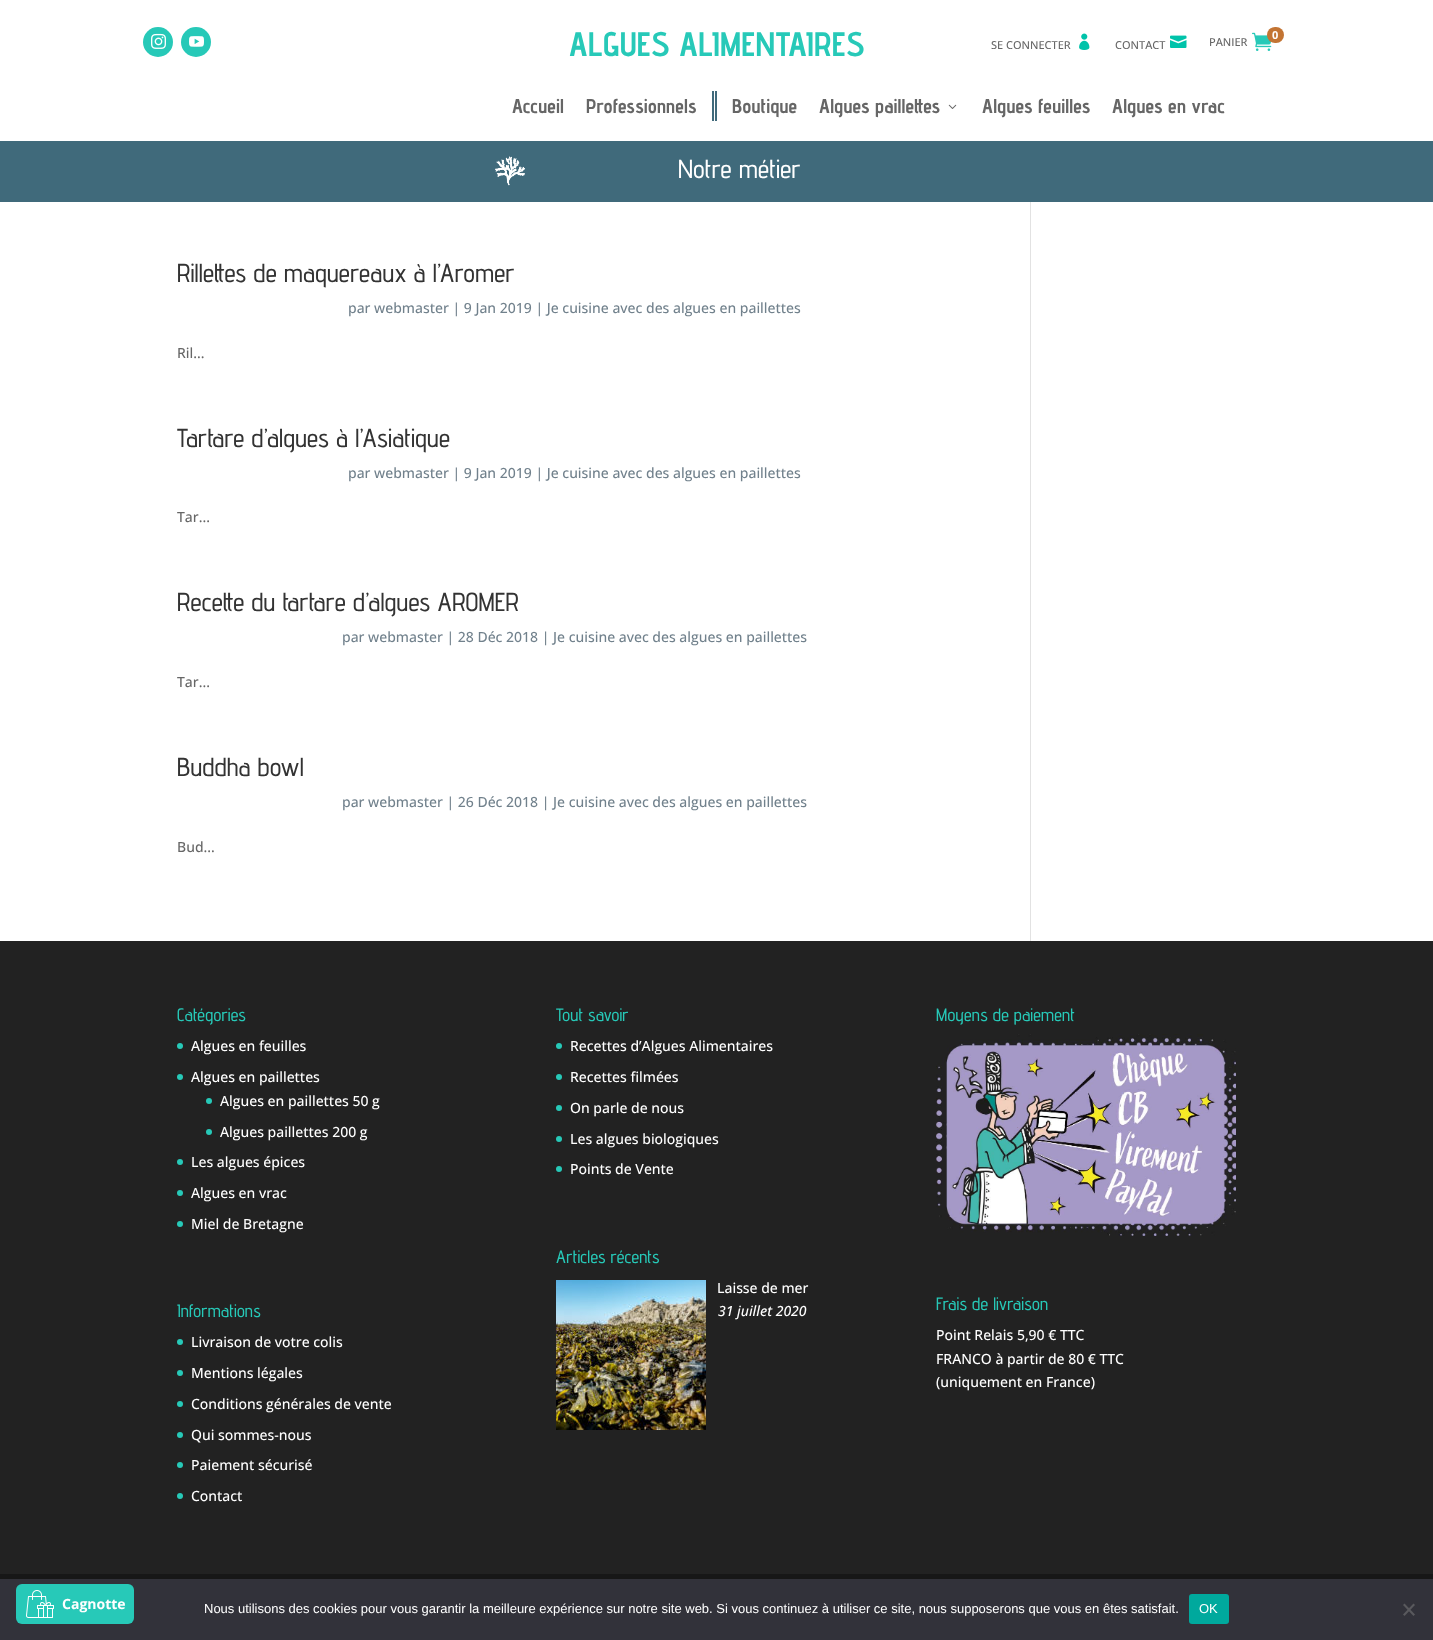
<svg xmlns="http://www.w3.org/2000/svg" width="1433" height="1640">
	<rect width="100%" height="100%" fill="#FFFFFF" />
	<circle cx="158" cy="42" r="15" fill="#27C9B8" />
	<image x="151" y="33" width="15" height="16" href="assets/img1.png" />
	<circle cx="196" cy="42" r="15" fill="#27C9B8" />
	<image x="189" y="36" width="15" height="11" href="assets/img2.png" />
	<text x="569" y="56" font-family="Advent Pro" font-size="34" font-weight="700" fill="#27C9B8">ALGUES ALIMENTAIRES</text>
	<image x="1252" y="32" width="20" height="19" href="assets/img3.png" />
	<rect x="1267" y="27" width="17" height="16" rx="8" fill="#C37433" />
	<text x="1272" y="39" font-family="Open Sans" font-size="11" font-weight="700" fill="#FFFFFF">0</text>
	<text x="991" y="49" font-family="Open Sans" font-size="11" font-weight="500" fill="#666666">SE CONNECTER</text>
	<image x="1079" y="33" width="11" height="17" href="assets/img4.png" />
	<text x="1115" y="49" font-family="Open Sans" font-size="11" font-weight="500" fill="#666666">CONTACT</text>
	<image x="1170" y="35" width="17" height="13" href="assets/img5.png" />
	<text x="1209" y="46" font-family="Open Sans" font-size="11" font-weight="500" fill="#666666">PANIER</text>
	<rect x="712" y="91" width="2" height="30" fill="#406A7B" />
	<rect x="715" y="91" width="2" height="30" fill="#406A7B" />
	<g font-family="Advent Pro" font-size="20" font-weight="700" fill="#666666">
		<text x="512" y="113">Accueil</text>
		<text x="586" y="113">Professionnels</text>
		<text x="732" y="113">Boutique</text>
		<text x="819" y="113">Algues paillettes</text>
	</g>
	<image x="948" y="104" width="9" height="5" href="assets/img6.png" />
	<g font-family="Advent Pro" font-size="20" font-weight="700" fill="#666666">
		<text x="982" y="113">Algues feuilles</text>
		<text x="1112" y="113">Algues en vrac</text>
	</g>
	<rect x="0" y="141" width="1433" height="61" fill="#406A7B" />
	<image x="495" y="156" width="30" height="30" href="assets/img7.png" />
	<text x="678" y="178" font-family="Advent Pro" font-size="26" font-weight="500" fill="#FFFFFF">Notre métier</text>
	<text x="177" y="282" font-family="Advent Pro" font-size="26" font-weight="500" fill="#333333">Rillettes de maquereaux à l’Aromer</text>
	<text x="348" y="313" font-family="Open Sans" font-size="14" font-weight="500" fill="#71818C">par webmaster | 9 Jan 2019 | Je cuisine avec des algues en paillettes</text>
	<text x="177" y="358" font-family="Open Sans" font-size="14" font-weight="500" fill="#666666">Ril...</text>
	<text x="177" y="447" font-family="Advent Pro" font-size="26" font-weight="500" fill="#333333">Tartare d’algues à l’Asiatique</text>
	<text x="348" y="478" font-family="Open Sans" font-size="14" font-weight="500" fill="#71818C">par webmaster | 9 Jan 2019 | Je cuisine avec des algues en paillettes</text>
	<text x="177" y="522" font-family="Open Sans" font-size="14" font-weight="500" fill="#666666">Tar...</text>
	<text x="177" y="611" font-family="Advent Pro" font-size="26" font-weight="500" fill="#333333">Recette du tartare d’algues AROMER</text>
	<text x="342" y="642" font-family="Open Sans" font-size="14" font-weight="500" fill="#71818C">par webmaster | 28 Déc 2018 | Je cuisine avec des algues en paillettes</text>
	<text x="177" y="687" font-family="Open Sans" font-size="14" font-weight="500" fill="#666666">Tar...</text>
	<text x="177" y="776" font-family="Advent Pro" font-size="26" font-weight="500" fill="#333333">Buddha bowl</text>
	<text x="342" y="807" font-family="Open Sans" font-size="14" font-weight="500" fill="#71818C">par webmaster | 26 Déc 2018 | Je cuisine avec des algues en paillettes</text>
	<text x="177" y="852" font-family="Open Sans" font-size="14" font-weight="500" fill="#666666">Bud...</text>
	<rect x="1030" y="202" width="1" height="739" fill="#E2E2E2" />
	<rect x="0" y="941" width="1433" height="633" fill="#222222" />
	<text x="177" y="1021" font-family="Advent Pro" font-size="18" font-weight="500" fill="#27C9B8">Catégories</text>
	<circle cx="180" cy="1046" r="3" fill="#27C9B8" />
	<text x="191" y="1051" font-family="Open Sans" font-size="14" font-weight="500" fill="#FFFFFF">Algues en feuilles</text>
	<circle cx="180" cy="1077" r="3" fill="#27C9B8" />
	<text x="191" y="1082" font-family="Open Sans" font-size="14" font-weight="500" fill="#FFFFFF">Algues en paillettes</text>
	<circle cx="209" cy="1101" r="3" fill="#27C9B8" />
	<text x="220" y="1106" font-family="Open Sans" font-size="14" font-weight="500" fill="#FFFFFF">Algues en paillettes 50 g</text>
	<circle cx="209" cy="1132" r="3" fill="#27C9B8" />
	<text x="220" y="1137" font-family="Open Sans" font-size="14" font-weight="500" fill="#FFFFFF">Algues paillettes 200 g</text>
	<circle cx="180" cy="1162" r="3" fill="#27C9B8" />
	<text x="191" y="1167" font-family="Open Sans" font-size="14" font-weight="500" fill="#FFFFFF">Les algues épices</text>
	<circle cx="180" cy="1193" r="3" fill="#27C9B8" />
	<text x="191" y="1198" font-family="Open Sans" font-size="14" font-weight="500" fill="#FFFFFF">Algues en vrac</text>
	<circle cx="180" cy="1224" r="3" fill="#27C9B8" />
	<text x="191" y="1229" font-family="Open Sans" font-size="14" font-weight="500" fill="#FFFFFF">Miel de Bretagne</text>
	<text x="177" y="1317" font-family="Advent Pro" font-size="18" font-weight="500" fill="#27C9B8">Informations</text>
	<circle cx="180" cy="1342" r="3" fill="#27C9B8" />
	<text x="191" y="1347" font-family="Open Sans" font-size="14" font-weight="500" fill="#FFFFFF">Livraison de votre colis</text>
	<circle cx="180" cy="1373" r="3" fill="#27C9B8" />
	<text x="191" y="1378" font-family="Open Sans" font-size="14" font-weight="500" fill="#FFFFFF">Mentions légales</text>
	<circle cx="180" cy="1404" r="3" fill="#27C9B8" />
	<text x="191" y="1409" font-family="Open Sans" font-size="14" font-weight="500" fill="#FFFFFF">Conditions générales de vente</text>
	<circle cx="180" cy="1435" r="3" fill="#27C9B8" />
	<text x="191" y="1440" font-family="Open Sans" font-size="14" font-weight="500" fill="#FFFFFF">Qui sommes-nous</text>
	<circle cx="180" cy="1465" r="3" fill="#27C9B8" />
	<text x="191" y="1470" font-family="Open Sans" font-size="14" font-weight="500" fill="#FFFFFF">Paiement sécurisé</text>
	<circle cx="180" cy="1496" r="3" fill="#27C9B8" />
	<text x="191" y="1501" font-family="Open Sans" font-size="14" font-weight="500" fill="#FFFFFF">Contact</text>
	<text x="556" y="1021" font-family="Advent Pro" font-size="18" font-weight="500" fill="#27C9B8">Tout savoir</text>
	<circle cx="559" cy="1046" r="3" fill="#27C9B8" />
	<text x="570" y="1051" font-family="Open Sans" font-size="14" font-weight="500" fill="#FFFFFF">Recettes d’Algues Alimentaires</text>
	<circle cx="559" cy="1077" r="3" fill="#27C9B8" />
	<text x="570" y="1082" font-family="Open Sans" font-size="14" font-weight="500" fill="#FFFFFF">Recettes filmées</text>
	<circle cx="559" cy="1108" r="3" fill="#27C9B8" />
	<text x="570" y="1113" font-family="Open Sans" font-size="14" font-weight="500" fill="#FFFFFF">On parle de nous</text>
	<circle cx="559" cy="1139" r="3" fill="#27C9B8" />
	<text x="570" y="1144" font-family="Open Sans" font-size="14" font-weight="500" fill="#FFFFFF">Les algues biologiques</text>
	<circle cx="559" cy="1169" r="3" fill="#27C9B8" />
	<text x="570" y="1174" font-family="Open Sans" font-size="14" font-weight="500" fill="#FFFFFF">Points de Vente</text>
	<text x="556" y="1263" font-family="Advent Pro" font-size="18" font-weight="500" fill="#27C9B8">Articles récents</text>
	<image x="556" y="1280" width="150" height="150" href="assets/img8.png" />
	<text x="717" y="1293" font-family="Open Sans" font-size="14" font-weight="500" fill="#FFFFFF">Laisse de mer</text>
	<text x="718" y="1316" font-family="Open Sans" font-size="14" font-weight="500" font-style="italic" fill="#FFFFFF">31 juillet 2020</text>
	<text x="936" y="1021" font-family="Advent Pro" font-size="18" font-weight="500" fill="#27C9B8">Moyens de paiement</text>
	<image x="936" y="1034" width="300" height="202" href="assets/img9.png" />
	<text x="936" y="1310" font-family="Advent Pro" font-size="18" font-weight="500" fill="#27C9B8">Frais de livraison</text>
	<g font-family="Open Sans" font-size="14" font-weight="500" fill="#FFFFFF">
		<text x="936" y="1340">Point Relais 5,90 € TTC</text>
		<text x="936" y="1364">FRANCO à partir de 80 € TTC</text>
		<text x="936" y="1387">(uniquement en France)</text>
	</g>
	<rect x="0" y="1574" width="1433" height="5" fill="#171717" />
	<rect x="0" y="1579" width="1433" height="61" fill="#32323A" />
	<rect x="16" y="1584" width="118" height="40" rx="6" fill="#27C9B8" />
	<image x="26" y="1590" width="28" height="28" href="assets/img10.png" />
	<text x="62" y="1609" font-family="Open Sans" font-size="14" font-weight="700" fill="#FFFFFF">Cagnotte</text>
	<text x="204" y="1613" font-family="Liberation Sans" font-size="13" fill="#FFFFFF">Nous utilisons des cookies pour vous garantir la meilleure expérience sur notre site web. Si vous continuez à utiliser ce site, nous supposerons que vous en êtes satisfait.</text>
	<rect x="1189" y="1594" width="40" height="30" rx="3" fill="#00A99D" />
	<text x="1199" y="1613" font-family="Liberation Sans" font-size="13" fill="#FFFFFF">OK</text>
	<path d="M1413.5 1603.5L1415 1605L1404.5 1616L1403 1614.5Z" fill="#59595D" />
	<path d="M1403 1605L1404.5 1603.5L1415 1614.5L1413.5 1616Z" fill="#59595D" />
</svg>
